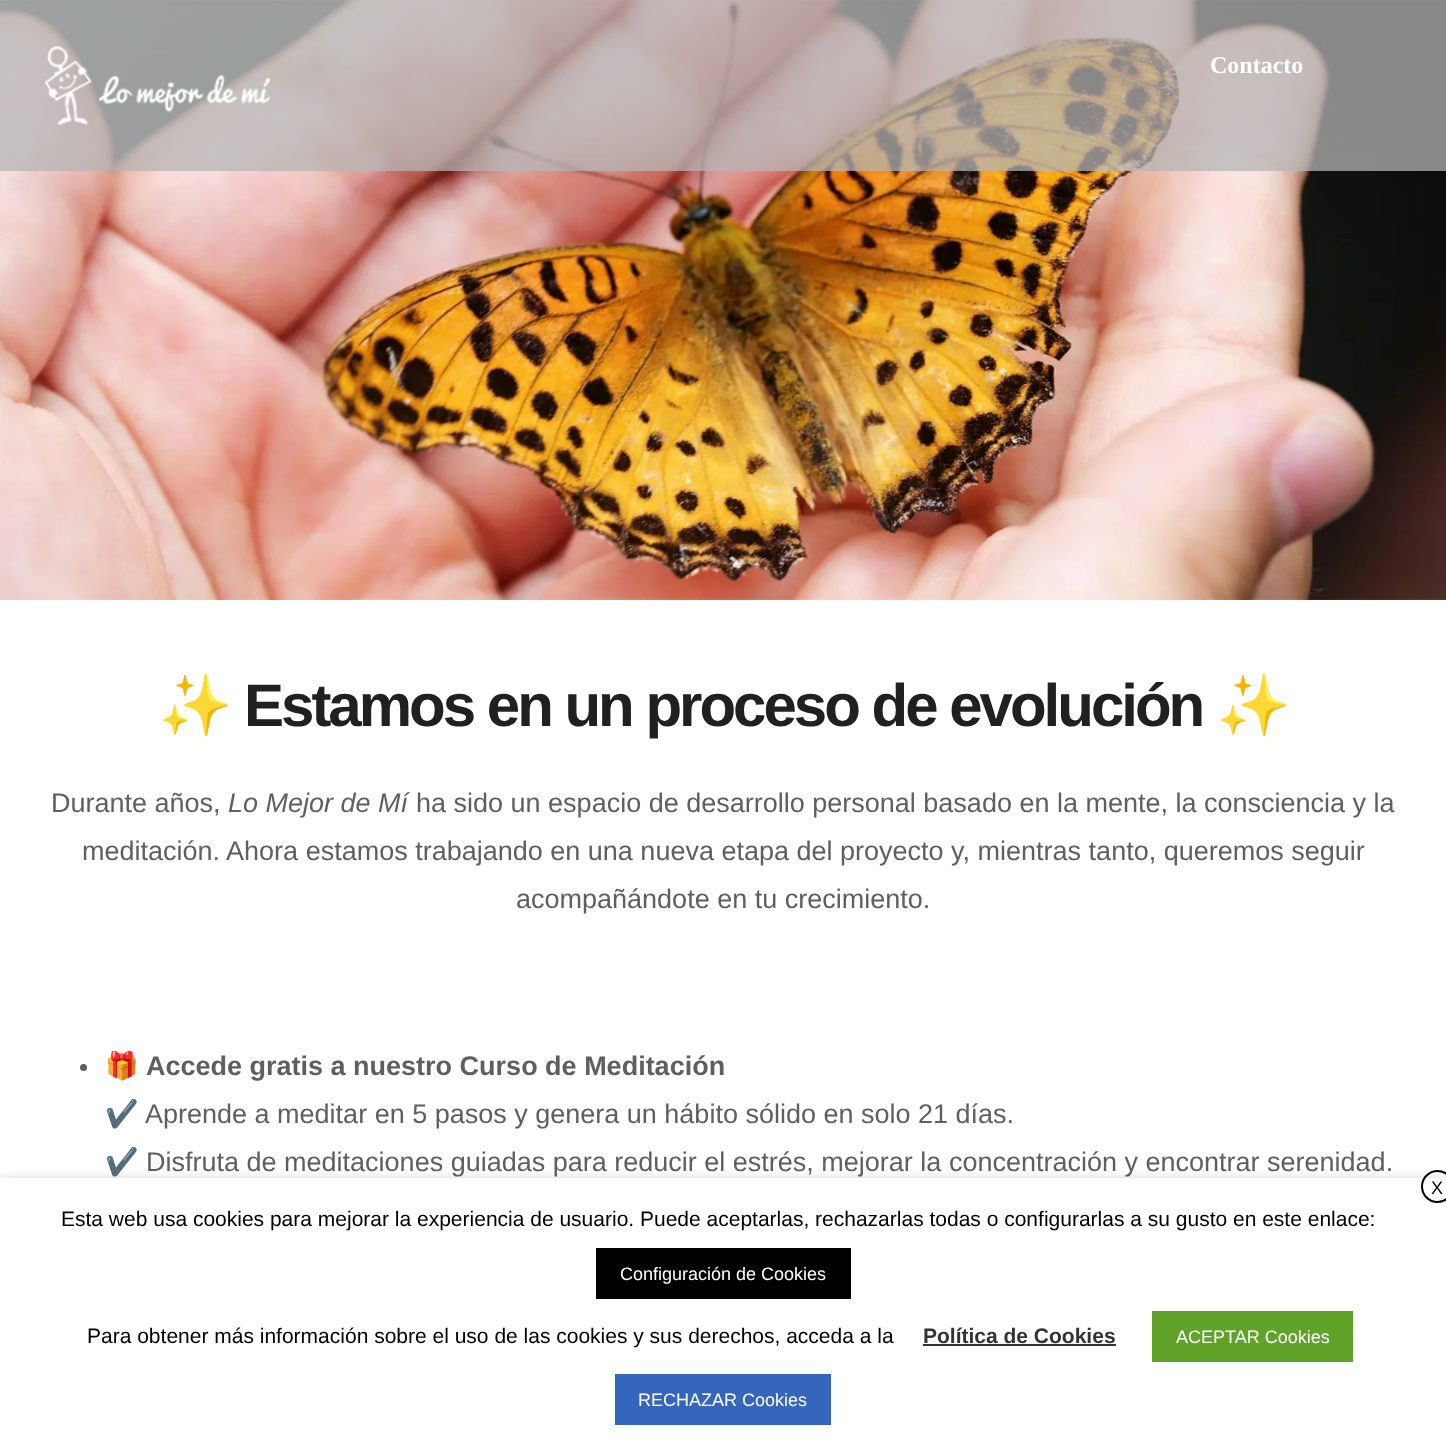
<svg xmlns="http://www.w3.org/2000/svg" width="1446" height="1446">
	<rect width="100%" height="100%" fill="#FFFFFF" />
	<image x="0" y="0" width="1446" height="600" href="assets/img1.png" />
	<rect x="0" y="0" width="1446" height="171" fill="#B5B5B5" fill-opacity="0.74" />
	<image x="45" y="46" width="225" height="79" href="assets/img2.png" />
	<text x="1210" y="73" font-family="Liberation Serif" font-size="24" font-weight="700" fill="#FFFFFF">Contacto</text>
	<text x="158" y="726" font-family="Noto Color Emoji" font-size="60" font-weight="700" letter-spacing="-3" fill="#202020">✨</text>
	<text x="244" y="726" font-family="Liberation Sans" font-size="60" font-weight="700" letter-spacing="-3" fill="#202020">Estamos en un proceso de evolución</text>
	<text x="1216" y="726" font-family="Noto Color Emoji" font-size="60" font-weight="700" letter-spacing="-3" fill="#202020">✨</text>
	<text x="51" y="812" font-family="Liberation Sans" font-size="27" fill="#5D5F64">Durante años,</text>
	<text x="228" y="812" font-family="Liberation Sans" font-size="27" font-style="italic" fill="#5D5F64">Lo Mejor de Mí</text>
	<g font-family="Liberation Sans" font-size="27" fill="#5D5F64">
		<text x="416" y="812">ha sido un espacio de desarrollo personal basado en la mente, la consciencia y la</text>
		<text x="82" y="860">meditación. Ahora estamos trabajando en una nueva etapa del proyecto y, mientras tanto, queremos seguir</text>
		<text x="516" y="908">acompañándote en tu crecimiento.</text>
	</g>
	<circle cx="83.5" cy="1067.5" r="3.5" fill="#5D5F64" />
	<text x="105" y="1075" font-family="Noto Color Emoji" font-size="27" fill="#5D5F64">🎁</text>
	<text x="146" y="1075" font-family="Liberation Sans" font-size="27" font-weight="700" fill="#5D5F64">Accede gratis a nuestro Curso de Meditación</text>
	<text x="105" y="1123" font-family="Noto Color Emoji" font-size="27" fill="#5D5F64">✔️</text>
	<text x="145" y="1123" font-family="Liberation Sans" font-size="27" fill="#5D5F64">Aprende a meditar en 5 pasos y genera un hábito sólido en solo 21 días.</text>
	<text x="105" y="1171" font-family="Noto Color Emoji" font-size="27" fill="#5D5F64">✔️</text>
	<text x="146" y="1171" font-family="Liberation Sans" font-size="27" fill="#5D5F64">Disfruta de meditaciones guiadas para reducir el estrés, mejorar la concentración y encontrar serenidad.</text>
	<rect x="0" y="1185" width="1446" height="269" fill="#000000" fill-opacity="0.5" filter="blur(7.5px)" />
	<rect x="0" y="1178" width="1446" height="268" fill="#FFFFFF" />
	<circle cx="1437.5" cy="1186.5" r="15.5" fill="none" stroke="#000000" stroke-width="2" />
	<text x="1431" y="1194" font-family="Liberation Sans" font-size="18" fill="#000000">X</text>
	<text x="61" y="1226" font-family="Liberation Sans" font-size="21" fill="#000000">Esta web usa cookies para mejorar la experiencia de usuario. Puede aceptarlas, rechazarlas todas o configurarlas a su gusto en este enlace:</text>
	<rect x="593" y="1245" width="261" height="57" rx="3" fill="#000000" stroke="#FFFFFF" stroke-width="6" />
	<text x="620" y="1280" font-family="Liberation Sans" font-size="18" fill="#FFFFFF">Configuración de Cookies</text>
	<text x="87" y="1343" font-family="Liberation Sans" font-size="21" fill="#000000">Para obtener más información sobre el uso de las cookies y sus derechos, acceda a la</text>
	<text x="923" y="1343" font-family="Liberation Sans" font-size="21" font-weight="700" fill="#333333">Política de Cookies</text>
	<rect x="923" y="1344" width="193" height="2" fill="#333333" />
	<rect x="1149" y="1308" width="207" height="57" rx="3" fill="#61A229" stroke="#FFFFFF" stroke-width="6" />
	<text x="1176" y="1343" font-family="Liberation Sans" font-size="18" fill="#FFFFFF">ACEPTAR Cookies</text>
	<rect x="612" y="1371" width="222" height="57" rx="3" fill="#3566BB" stroke="#FFFFFF" stroke-width="6" />
	<text x="638" y="1406" font-family="Liberation Sans" font-size="18" fill="#FFFFFF">RECHAZAR Cookies</text>
</svg>
